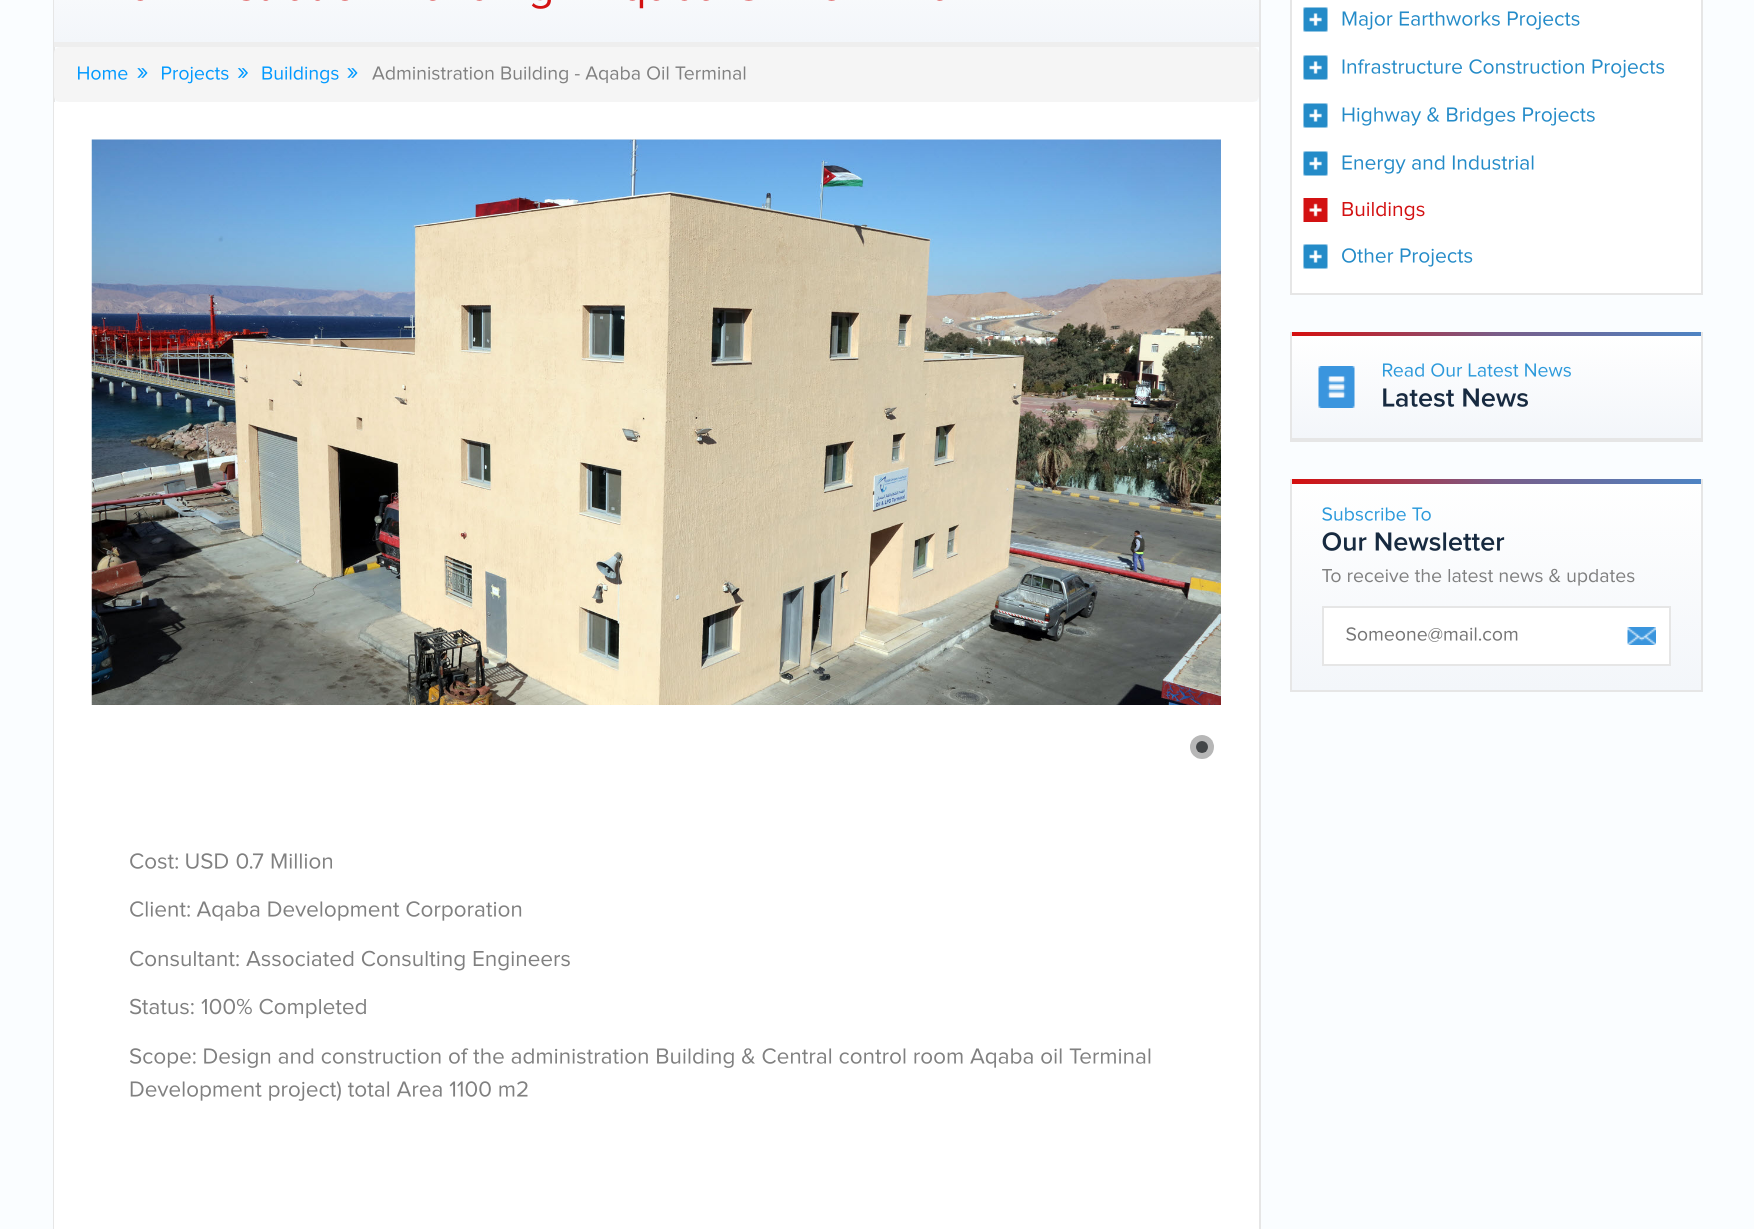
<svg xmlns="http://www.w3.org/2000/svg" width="1754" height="1229">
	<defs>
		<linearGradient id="g1" gradientUnits="userSpaceOnUse" x1="656" y1="-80" x2="656" y2="42"><stop offset="0" stop-color="#FFFFFF" /><stop offset="1" stop-color="#F3F6FA" /></linearGradient>
		<linearGradient id="g2" gradientUnits="userSpaceOnUse" x1="1292" y1="334" x2="1701" y2="334"><stop offset="0" stop-color="#D60F0E" /><stop offset="0.5" stop-color="#7A5D88" /><stop offset="1" stop-color="#4E84C4" /></linearGradient>
		<linearGradient id="g3" gradientUnits="userSpaceOnUse" x1="1496" y1="336" x2="1496" y2="438"><stop offset="0" stop-color="#FFFFFF" /><stop offset="1" stop-color="#F3F6FA" /></linearGradient>
		<linearGradient id="g4" gradientUnits="userSpaceOnUse" x1="1496" y1="479" x2="1496" y2="690"><stop offset="0" stop-color="#FFFFFF" /><stop offset="1" stop-color="#F3F6FA" /></linearGradient>
		<linearGradient id="g5" gradientUnits="userSpaceOnUse" x1="1292" y1="481" x2="1701" y2="481"><stop offset="0" stop-color="#D60F0E" /><stop offset="0.5" stop-color="#7A5D88" /><stop offset="1" stop-color="#4E84C4" /></linearGradient>
	</defs>
	<rect width="100%" height="100%" fill="#FAFDFF" />
	<rect x="1259" y="0" width="2" height="1229" fill="#E6E6E6" />
	<rect x="53" y="0" width="2" height="1229" fill="#E6E6E6" />
	<rect x="54" y="0" width="1205" height="42" fill="url(#g1)" />
	<rect x="54" y="42" width="1205" height="5" fill="#EEEEEE" />
	<image x="137" y="0" width="806" height="9" href="assets/img1.png" />
	<rect x="54" y="47" width="1205" height="55" rx="6" fill="#F5F5F5" />
	<image x="78" y="66" width="50" height="14" href="assets/img2.png" />
	<image x="137" y="68" width="11" height="10" href="assets/img3.png" />
	<image x="162" y="66" width="67" height="18" href="assets/img4.png" />
	<image x="237" y="68" width="11" height="10" href="assets/img5.png" />
	<image x="262" y="66" width="77" height="18" href="assets/img6.png" />
	<image x="347" y="68" width="11" height="10" href="assets/img3.png" />
	<image x="372" y="66" width="374" height="18" href="assets/img7.png" />
	<rect x="54" y="102" width="1205" height="1127" fill="#FFFFFF" />
	<image x="91" y="139" width="1130" height="566" href="assets/img8.png" />
	<circle cx="1202" cy="747" r="12" fill="#B7B7B7" />
	<circle cx="1202" cy="747" r="6" fill="#434648" />
	<image x="130" y="853" width="48" height="16" href="assets/img9.png" />
	<image x="186" y="853" width="42" height="16" href="assets/img10.png" />
	<image x="236" y="853" width="28" height="16" href="assets/img11.png" />
	<image x="271" y="853" width="61" height="16" href="assets/img12.png" />
	<image x="130" y="901" width="60" height="16" href="assets/img13.png" />
	<image x="196" y="901" width="326" height="20" href="assets/img14.png" />
	<image x="130" y="950" width="109" height="17" href="assets/img15.png" />
	<image x="246" y="950" width="324" height="21" href="assets/img16.png" />
	<image x="130" y="998" width="64" height="17" href="assets/img17.png" />
	<image x="201" y="998" width="165" height="21" href="assets/img18.png" />
	<image x="130" y="1048" width="66" height="20" href="assets/img19.png" />
	<image x="204" y="1048" width="947" height="20" href="assets/img20.png" />
	<image x="130" y="1081" width="398" height="20" href="assets/img21.png" />
	<rect x="1292" y="0" width="409" height="293" fill="#FFFFFF" />
	<rect x="1701" y="0" width="2" height="294" fill="#E6E6E6" />
	<rect x="1290" y="293" width="413" height="2" fill="#E6E6E6" />
	<rect x="1290" y="0" width="2" height="294" fill="#E6E6E6" />
	<image x="1303" y="7" width="25" height="25" href="assets/img22.png" />
	<image x="1342" y="11" width="238" height="19" href="assets/img23.png" />
	<image x="1303" y="55" width="25" height="25" href="assets/img22.png" />
	<image x="1342" y="59" width="323" height="19" href="assets/img24.png" />
	<image x="1303" y="103" width="25" height="25" href="assets/img22.png" />
	<image x="1342" y="107" width="253" height="19" href="assets/img25.png" />
	<image x="1303" y="151" width="25" height="25" href="assets/img22.png" />
	<image x="1342" y="155" width="192" height="19" href="assets/img26.png" />
	<image x="1303" y="198" width="25" height="24" href="assets/img27.png" />
	<image x="1342" y="202" width="83" height="19" href="assets/img28.png" />
	<image x="1303" y="244" width="25" height="25" href="assets/img22.png" />
	<image x="1342" y="248" width="131" height="19" href="assets/img29.png" />
	<rect x="1701" y="332" width="2" height="109" fill="#E6E6E6" />
	<rect x="1290" y="440" width="413" height="2" fill="#E6E6E6" />
	<rect x="1290" y="332" width="2" height="109" fill="#E6E6E6" />
	<rect x="1292" y="332" width="409" height="4" fill="url(#g2)" />
	<rect x="1292" y="336" width="409" height="102" fill="url(#g3)" />
	<rect x="1292" y="438" width="409" height="2" fill="#E6E6E6" />
	<image x="1318" y="366" width="37" height="42" href="assets/img30.png" />
	<image x="1383" y="363" width="188" height="14" href="assets/img31.png" />
	<image x="1383" y="388" width="145" height="19" href="assets/img32.png" />
	<rect x="1292" y="484" width="409" height="206" fill="url(#g4)" />
	<rect x="1701" y="479" width="2" height="213" fill="#E6E6E6" />
	<rect x="1290" y="690" width="413" height="2" fill="#E6E6E6" />
	<rect x="1290" y="479" width="2" height="213" fill="#E6E6E6" />
	<rect x="1292" y="479" width="409" height="5" fill="url(#g5)" />
	<image x="1322" y="507" width="109" height="14" href="assets/img33.png" />
	<image x="1322" y="532" width="183" height="19" href="assets/img34.png" />
	<image x="1322" y="568" width="313" height="18" href="assets/img35.png" />
	<rect x="1323" y="607" width="347" height="58" fill="#FFFFFF" stroke="#E6E6E6" stroke-width="2" />
	<image x="1346" y="627" width="172" height="15" href="assets/img36.png" />
	<image x="1627" y="627" width="29" height="18" href="assets/img37.png" />
</svg>
